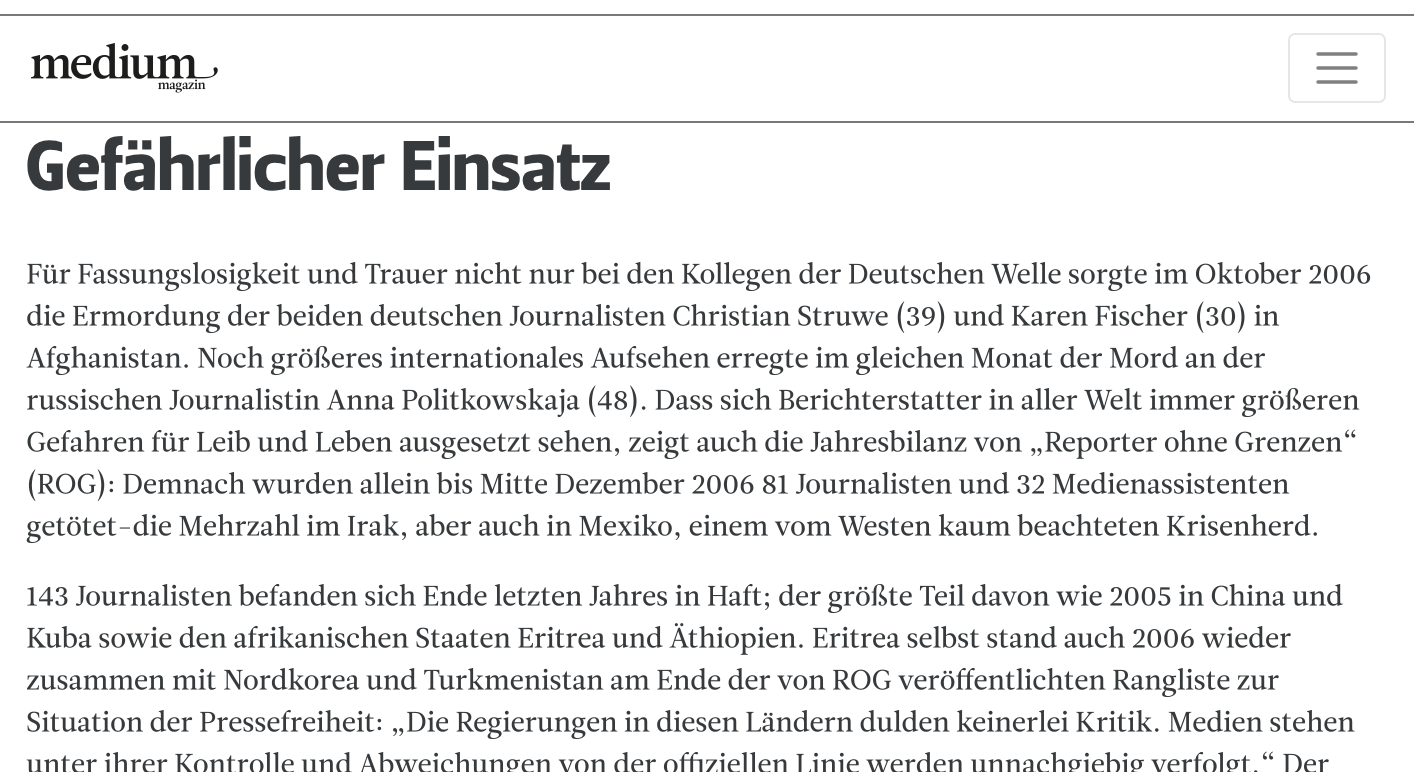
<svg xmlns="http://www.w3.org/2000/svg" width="1414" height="772">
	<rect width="100%" height="100%" fill="#FFFFFF" />
	<rect x="0" y="14" width="1414" height="2" fill="#7D7878" />
	<rect x="0" y="121" width="1414" height="2" fill="#7D7878" />
	<image x="31" y="43" width="187" height="50" href="assets/img1.png" />
	<rect x="1289" y="34" width="96" height="68" rx="6" fill="none" stroke="#E6E6E6" stroke-width="2" />
	<path d="M1318 54H1356M1318 68H1356M1318 82H1356" fill="none" stroke="#808080" stroke-width="3.5" stroke-linecap="round" />
	<text x="26" y="190" font-family="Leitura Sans" font-size="70" fill="#373A3C">Gefährlicher Einsatz</text>
	<image x="27" y="261" width="1344" height="31" href="assets/img2.png" />
	<image x="27" y="301" width="1253" height="33" href="assets/img3.png" />
	<image x="26" y="345" width="1240" height="31" href="assets/img4.png" />
	<image x="27" y="385" width="1333" height="33" href="assets/img5.png" />
	<image x="27" y="429" width="1329" height="31" href="assets/img6.png" />
	<image x="28" y="469" width="1262" height="32" href="assets/img7.png" />
	<image x="26" y="513" width="1291" height="31" href="assets/img8.png" />
	<image x="27" y="583" width="1316" height="31" href="assets/img9.png" />
	<image x="27" y="623" width="1264" height="32" href="assets/img10.png" />
	<image x="27" y="667" width="1252" height="31" href="assets/img11.png" />
	<image x="27" y="709" width="1328" height="31" href="assets/img12.png" />
	<image x="26" y="751" width="1303" height="21" href="assets/img13.png" />
</svg>
